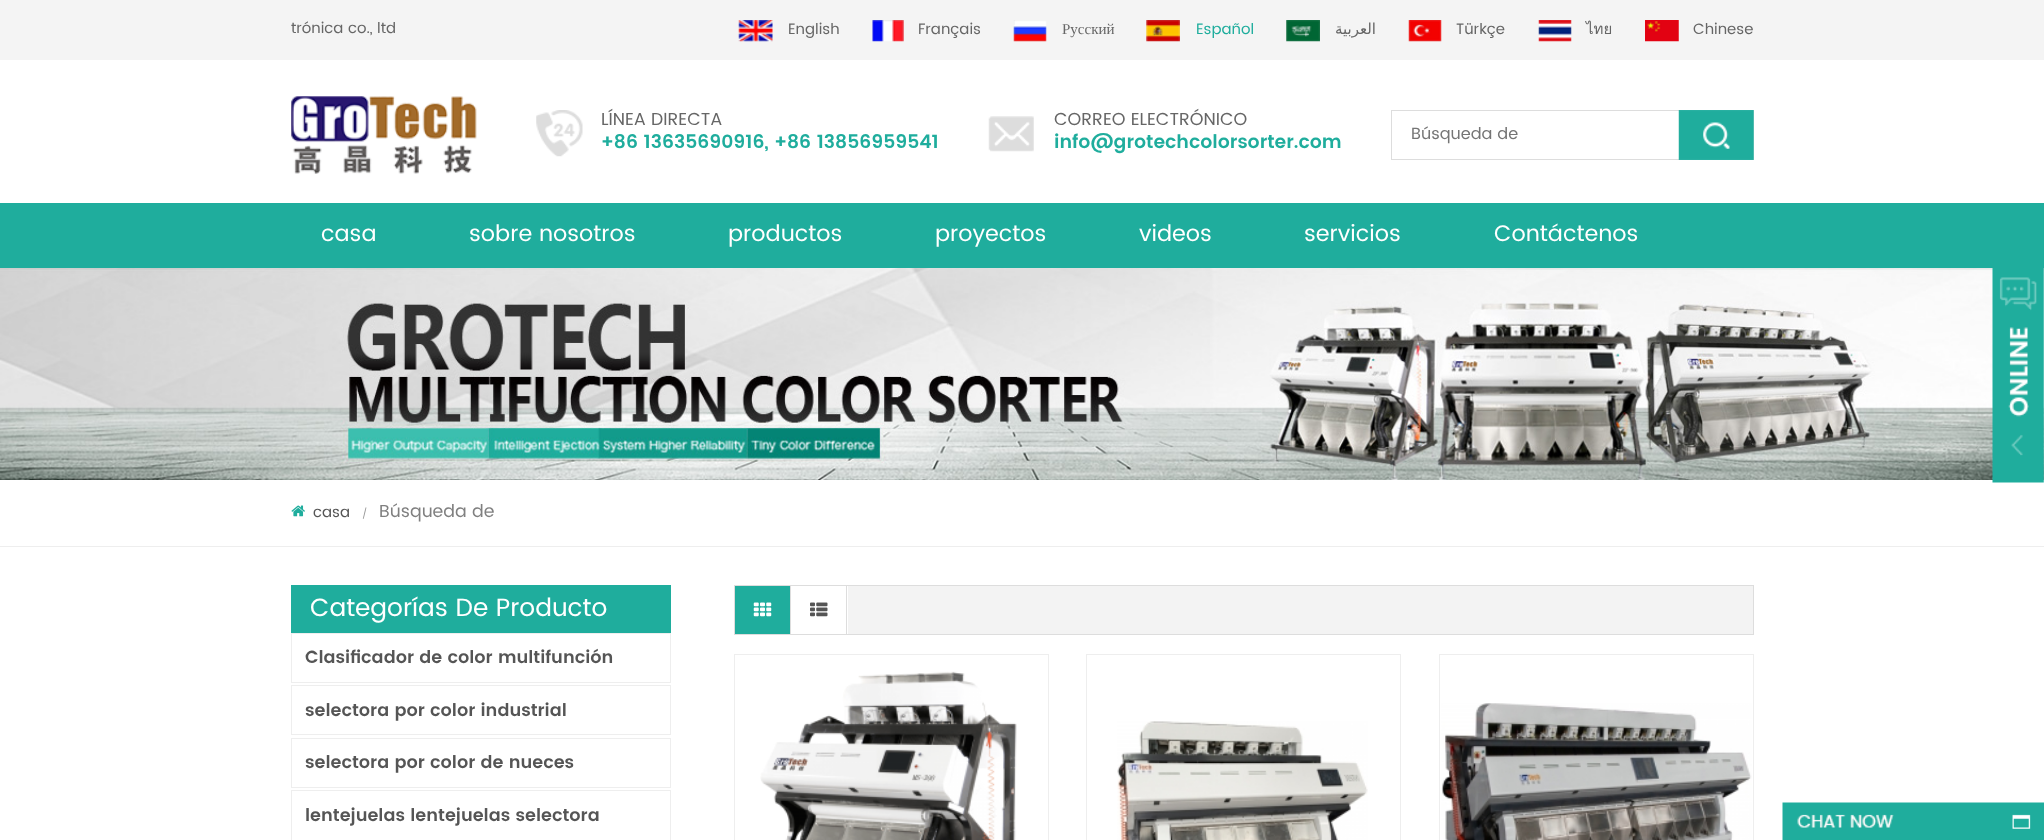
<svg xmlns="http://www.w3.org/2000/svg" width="2044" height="840">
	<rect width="100%" height="100%" fill="#FFFFFF" />
	<rect x="0" y="0" width="2044" height="60" fill="#F4F4F4" />
	<text x="291" y="33" font-family="Poppins" font-size="15" fill="#666666">trónica co., ltd</text>
	<image x="738" y="20" width="35" height="22" href="assets/img1.png" />
	<text x="788" y="34" font-family="Poppins" font-size="15" fill="#666666">English</text>
	<image x="872" y="20" width="32" height="22" href="assets/img2.png" />
	<text x="918" y="34" font-family="Poppins" font-size="15" fill="#666666">Français</text>
	<image x="1013" y="20" width="34" height="22" href="assets/img3.png" />
	<text x="1062" y="34" font-family="Liberation Serif" font-size="15" fill="#666666">Русский</text>
	<image x="1146" y="20" width="34" height="22" href="assets/img4.png" />
	<text x="1196" y="34" font-family="Poppins" font-size="15" fill="#1FAD9D">Español</text>
	<image x="1286" y="20" width="34" height="22" href="assets/img5.png" />
	<text x="1376" y="34" font-family="DejaVu Sans" font-size="15" direction="rtl" fill="#666666">العربية</text>
	<image x="1408" y="20" width="34" height="22" href="assets/img6.png" />
	<text x="1456" y="34" font-family="Poppins" font-size="15" fill="#666666">Türkçe</text>
	<image x="1538" y="20" width="34" height="22" href="assets/img7.png" />
	<text x="1586" y="34" font-family="Loma" font-size="15" fill="#666666">ไทย</text>
	<image x="1645" y="20" width="34" height="22" href="assets/img8.png" />
	<text x="1693" y="34" font-family="Poppins" font-size="15" fill="#666666">Chinese</text>
	<image x="291" y="96" width="186" height="78" href="assets/img9.png" />
	<image x="536" y="110" width="47" height="47" href="assets/img10.png" />
	<text x="601" y="125" font-family="Poppins" font-size="17.5" fill="#666666">LÍNEA DIRECTA</text>
	<text x="601" y="148" font-family="Poppins" font-size="18.75" font-weight="600" fill="#1FAD9D">+86 13635690916, +86 13856959541</text>
	<image x="988" y="116" width="46" height="36" href="assets/img11.png" />
	<text x="1054" y="125" font-family="Poppins" font-size="17.5" fill="#666666">CORREO ELECTRÓNICO</text>
	<text x="1054" y="148" font-family="Poppins" font-size="18.75" font-weight="600" fill="#1FAD9D">info@grotechcolorsorter.com</text>
	<rect x="1391.5" y="110.5" width="362" height="49" fill="none" stroke="#DDDDDD" />
	<text x="1411" y="139" font-family="Poppins" font-size="16.25" fill="#757575">Búsqueda de</text>
	<image x="1678" y="110" width="76" height="50" href="assets/img12.png" />
	<rect x="0" y="203" width="2044" height="65" fill="#1FAD9D" />
	<g font-family="Poppins" font-size="22.5" fill="#FFFFFF">
		<text x="321" y="241">casa</text>
		<text x="469" y="241">sobre nosotros</text>
		<text x="728" y="241">productos</text>
		<text x="935" y="241">proyectos</text>
		<text x="1139" y="241">videos</text>
		<text x="1304" y="241">servicios</text>
		<text x="1494" y="241">Contáctenos</text>
	</g>
	<image x="0" y="268" width="2044" height="212" href="assets/img13.png" />
	<image x="1992" y="268" width="52" height="215" href="assets/img14.png" />
	<rect x="0" y="546" width="2044" height="1" fill="#EEEEEE" />
	<image x="291" y="505" width="14" height="12" href="assets/img15.png" />
	<text x="313" y="517" font-family="Poppins" font-size="15" fill="#555555">casa</text>
	<text x="362" y="517" font-family="Poppins" font-size="10" fill="#999999">/</text>
	<text x="379" y="517" font-family="Poppins" font-size="17.5" fill="#808080">Búsqueda de</text>
	<rect x="291" y="585" width="380" height="48" fill="#1FAD9D" />
	<text x="310" y="616" font-family="Poppins" font-size="25" fill="#FFFFFF">Categorías De Producto</text>
	<rect x="291.5" y="633.5" width="379" height="49" fill="none" stroke="#EEEEEE" />
	<text x="305" y="663" font-family="Poppins" font-size="17.5" font-weight="600" fill="#555555">Clasificador de color multifunción</text>
	<rect x="291.5" y="685.5" width="379" height="49" fill="none" stroke="#EEEEEE" />
	<text x="305" y="716" font-family="Poppins" font-size="17.5" font-weight="600" fill="#555555">selectora por color industrial</text>
	<rect x="291.5" y="738.5" width="379" height="49" fill="none" stroke="#EEEEEE" />
	<text x="305" y="768" font-family="Poppins" font-size="17.5" font-weight="600" fill="#555555">selectora por color de nueces</text>
	<rect x="291.5" y="790.5" width="379" height="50" fill="none" stroke="#EEEEEE" />
	<text x="305" y="821" font-family="Poppins" font-size="17.5" font-weight="600" fill="#555555">lentejuelas lentejuelas selectora</text>
	<rect x="848" y="586" width="905" height="48" fill="#F3F3F3" />
	<rect x="734.5" y="585.5" width="1019" height="49" fill="none" stroke="#DDDDDD" />
	<rect x="735" y="586" width="55" height="48" fill="#1FAD9D" />
	<rect x="790" y="586" width="1" height="48" fill="#DDDDDD" />
	<image x="753" y="602" width="19" height="15" href="assets/img16.png" />
	<rect x="846" y="586" width="1" height="48" fill="#DDDDDD" />
	<image x="810" y="602" width="18" height="15" href="assets/img17.png" />
	<rect x="734.5" y="654.5" width="314" height="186" fill="none" stroke="#EEEEEE" />
	<image x="760" y="671" width="257" height="169" href="assets/img18.png" />
	<rect x="1086.5" y="654.5" width="314" height="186" fill="none" stroke="#EEEEEE" />
	<image x="1117" y="721" width="251" height="119" href="assets/img19.png" />
	<rect x="1439.5" y="654.5" width="314" height="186" fill="none" stroke="#EEEEEE" />
	<image x="1441" y="703" width="311" height="137" href="assets/img20.png" />
	<image x="1782" y="802" width="262" height="38" href="assets/img21.png" />
</svg>
